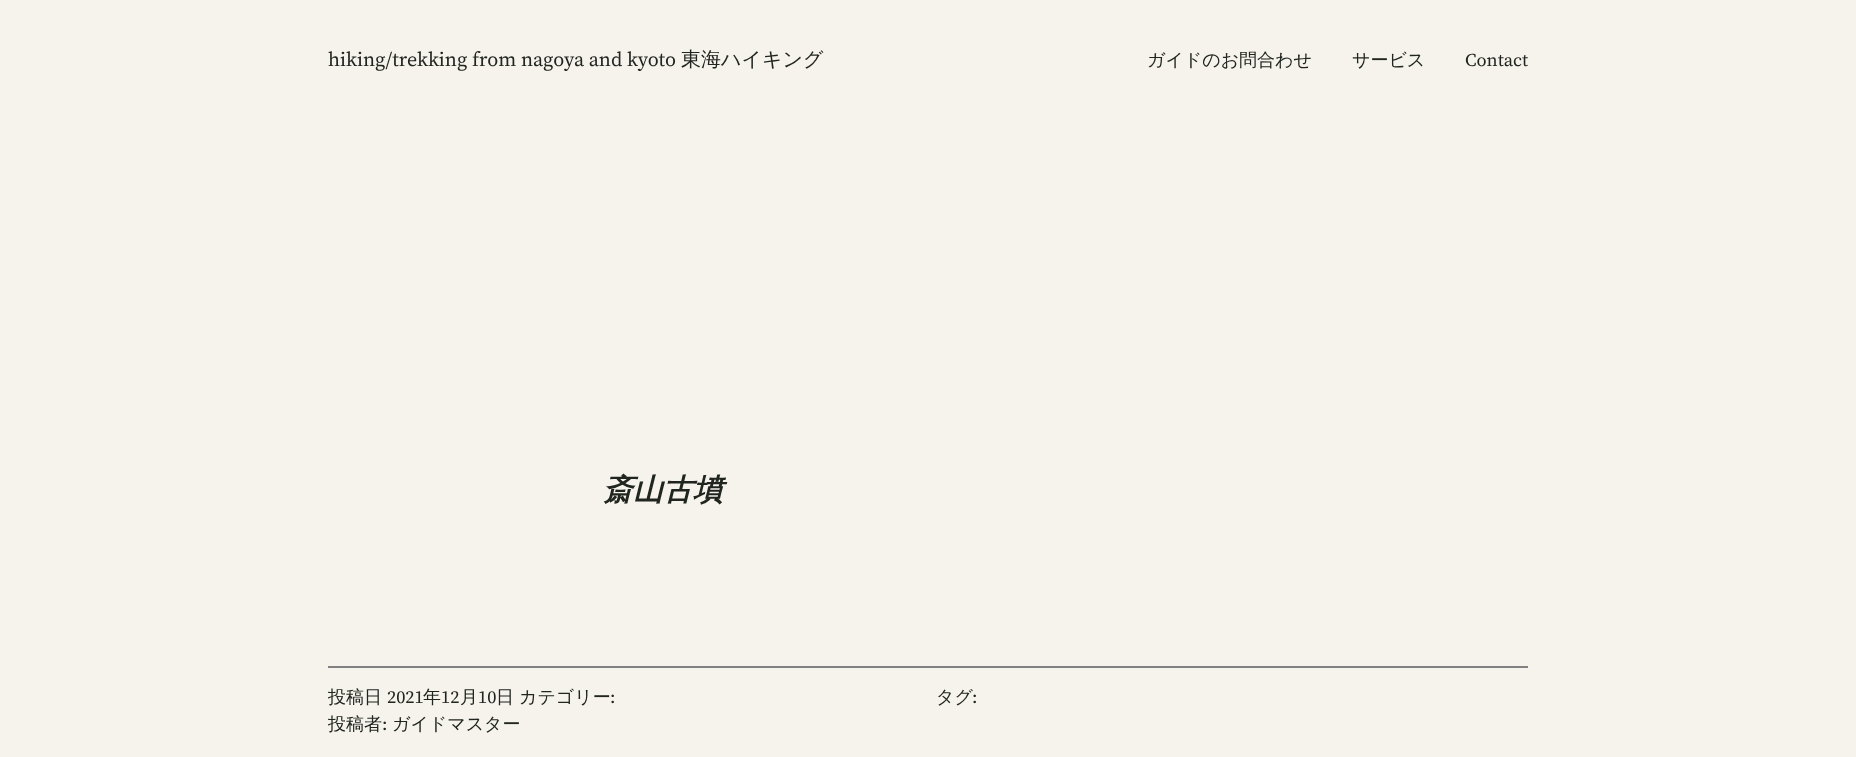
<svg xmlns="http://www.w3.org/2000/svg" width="1856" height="757">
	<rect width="100%" height="100%" fill="#F6F2EC" />
	<text x="328" y="66" font-family="'Source Serif 4'" font-size="20" fill="#21251F">hiking/trekking from nagoya and kyoto</text>
	<text x="681" y="66" font-family="WenQuanYi Zen Hei" font-size="20" font-weight="500" fill="#21251F">東海ハイキング</text>
	<g font-family="WenQuanYi Zen Hei" font-size="18" font-weight="500" fill="#21251F">
		<text x="1147" y="66">ガイドのお問合わせ</text>
		<text x="1352" y="66">サービス</text>
	</g>
	<text x="1465" y="66" font-family="'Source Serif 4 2'" font-size="18" fill="#21251F">Contact</text>
	<text x="603" y="500" font-family="WenQuanYi Zen Hei" font-size="30" font-weight="700" font-style="italic" fill="#21251F">斎山古墳</text>
	<rect x="328" y="666" width="1200" height="2" fill="#808080" />
	<text x="328" y="703" font-family="WenQuanYi Zen Hei" font-size="18" font-weight="500" fill="#21251F">投稿日</text>
	<text x="387" y="703" font-family="'Source Serif 4 2'" font-size="18" fill="#21251F">2021</text>
	<text x="423" y="703" font-family="WenQuanYi Zen Hei" font-size="18" font-weight="500" fill="#21251F">年</text>
	<text x="441" y="703" font-family="'Source Serif 4 2'" font-size="18" fill="#21251F">12</text>
	<text x="460" y="703" font-family="WenQuanYi Zen Hei" font-size="18" font-weight="500" fill="#21251F">月</text>
	<text x="478" y="703" font-family="'Source Serif 4 2'" font-size="18" fill="#21251F">10</text>
	<g font-family="WenQuanYi Zen Hei" font-size="18" font-weight="500" fill="#21251F">
		<text x="496" y="703">日</text>
		<text x="519" y="703">カテゴリー</text>
	</g>
	<text x="610" y="703" font-family="'Source Serif 4 2'" font-size="18" fill="#21251F">:</text>
	<text x="328" y="730" font-family="WenQuanYi Zen Hei" font-size="18" font-weight="500" fill="#21251F">投稿者</text>
	<text x="382" y="730" font-family="'Source Serif 4 2'" font-size="18" fill="#21251F">:</text>
	<g font-family="WenQuanYi Zen Hei" font-size="18" font-weight="500" fill="#21251F">
		<text x="392" y="730">ガイドマスター</text>
		<text x="936" y="703">タグ</text>
	</g>
	<text x="972" y="703" font-family="'Source Serif 4 2'" font-size="18" fill="#21251F">:</text>
</svg>
